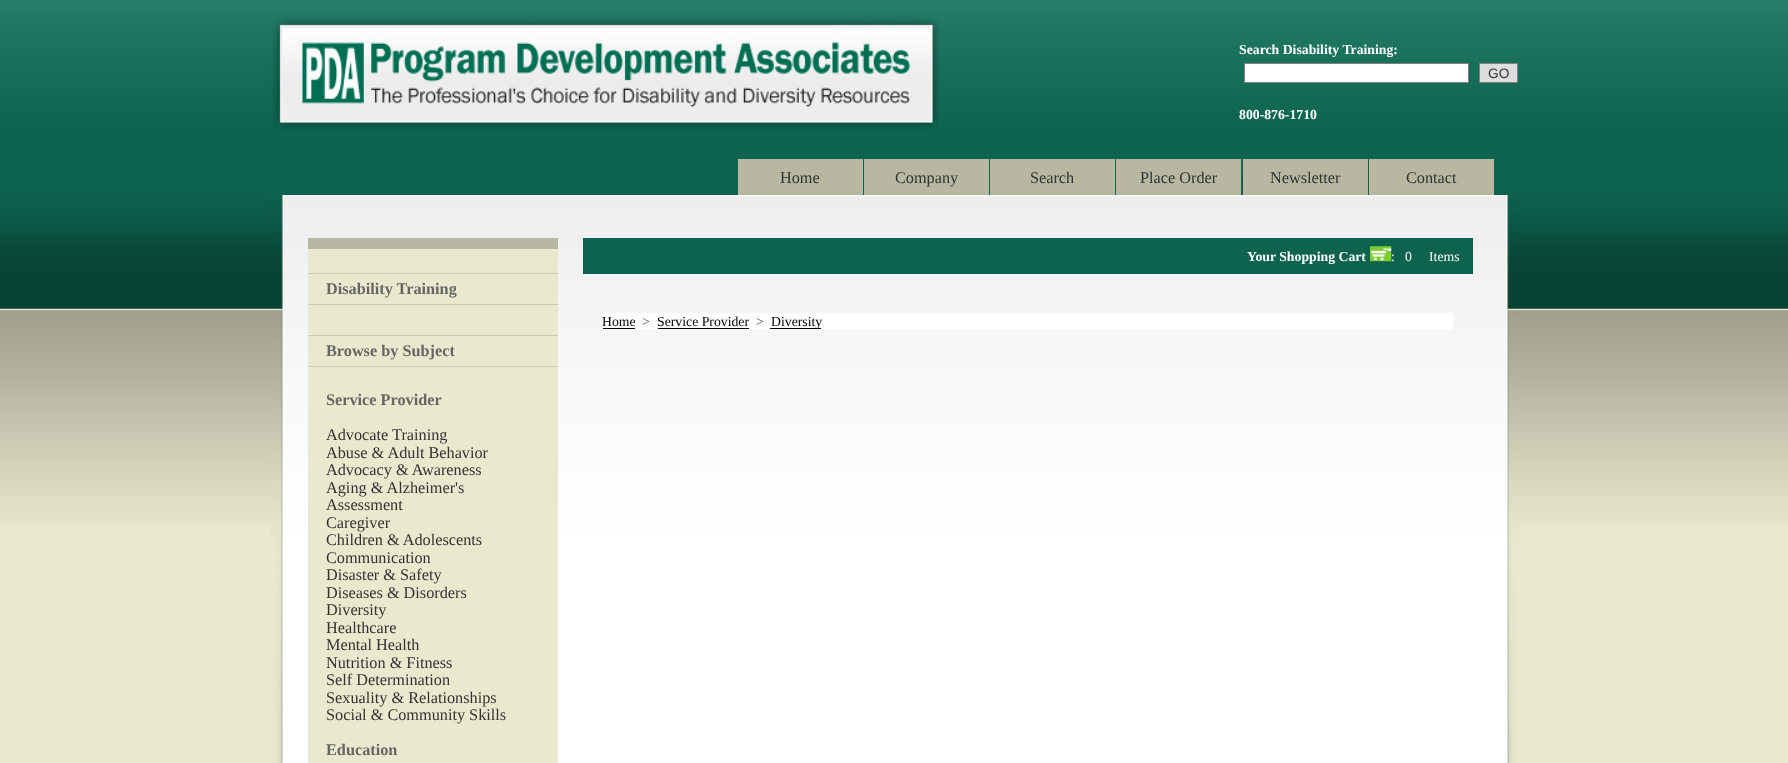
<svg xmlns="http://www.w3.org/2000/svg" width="1788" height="763">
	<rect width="100%" height="100%" fill="#E9E9CF" />
	<image x="0" y="0" width="1788" height="524" href="assets/img1.png" />
	<image x="271" y="16" width="668" height="115" href="assets/img2.png" />
	<text x="1239" y="54" font-family="Liberation Serif" font-size="13.75" font-weight="700" fill="#FFFFFF">Search Disability Training:</text>
	<rect x="1244.5" y="63.5" width="224" height="19" fill="#FFFFFF" stroke="#808080" />
	<rect x="1479.5" y="63.5" width="38" height="19" fill="#DDDDDD" stroke="#808080" />
	<text x="1488" y="78" font-family="Liberation Sans" font-size="13.75" fill="#333333">GO</text>
	<text x="1239" y="119" font-family="Liberation Serif" font-size="13.75" font-weight="700" fill="#FFFFFF">800-876-1710</text>
	<rect x="738" y="159" width="125" height="36" fill="#B7B7A2" />
	<text x="780" y="183" font-family="Liberation Serif" font-size="16.25" fill="#333333">Home</text>
	<rect x="864" y="159" width="125" height="36" fill="#B7B7A2" />
	<text x="895" y="183" font-family="Liberation Serif" font-size="16.25" fill="#333333">Company</text>
	<rect x="990" y="159" width="125" height="36" fill="#B7B7A2" />
	<text x="1030" y="183" font-family="Liberation Serif" font-size="16.25" fill="#333333">Search</text>
	<rect x="1116" y="159" width="125" height="36" fill="#B7B7A2" />
	<text x="1140" y="183" font-family="Liberation Serif" font-size="16.25" fill="#333333">Place Order</text>
	<rect x="1243" y="159" width="125" height="36" fill="#B7B7A2" />
	<text x="1270" y="183" font-family="Liberation Serif" font-size="16.25" fill="#333333">Newsletter</text>
	<rect x="1369" y="159" width="125" height="36" fill="#B7B7A2" />
	<text x="1406" y="183" font-family="Liberation Serif" font-size="16.25" fill="#333333">Contact</text>
	<image x="270" y="195" width="1250" height="568" href="assets/img3.png" />
	<rect x="308" y="249" width="250" height="514" fill="#EAE9CF" />
	<rect x="308" y="238" width="250" height="11" fill="#B7B7A2" />
	<rect x="308" y="273" width="250" height="1" fill="#CBCBB4" />
	<rect x="308" y="304" width="250" height="1" fill="#CBCBB4" />
	<text x="326" y="294" font-family="Liberation Serif" font-size="16.25" font-weight="700" fill="#666666">Disability Training</text>
	<rect x="308" y="335" width="250" height="1" fill="#CBCBB4" />
	<rect x="308" y="366" width="250" height="1" fill="#CBCBB4" />
	<g font-family="Liberation Serif" font-size="16.25" font-weight="700" fill="#666666">
		<text x="326" y="356">Browse by Subject</text>
		<text x="326" y="405">Service Provider</text>
	</g>
	<g font-family="Liberation Serif" font-size="16.25" fill="#333333">
		<text x="326" y="440">Advocate Training</text>
		<text x="326" y="458">Abuse &amp; Adult Behavior</text>
		<text x="326" y="475">Advocacy &amp; Awareness</text>
		<text x="326" y="493">Aging &amp; Alzheimer's</text>
		<text x="326" y="510">Assessment</text>
		<text x="326" y="528">Caregiver</text>
		<text x="326" y="545">Children &amp; Adolescents</text>
		<text x="326" y="563">Communication</text>
		<text x="326" y="580">Disaster &amp; Safety</text>
		<text x="326" y="598">Diseases &amp; Disorders</text>
		<text x="326" y="615">Diversity</text>
		<text x="326" y="633">Healthcare</text>
		<text x="326" y="650">Mental Health</text>
		<text x="326" y="668">Nutrition &amp; Fitness</text>
		<text x="326" y="685">Self Determination</text>
		<text x="326" y="703">Sexuality &amp; Relationships</text>
		<text x="326" y="720">Social &amp; Community Skills</text>
	</g>
	<text x="326" y="755" font-family="Liberation Serif" font-size="16.25" font-weight="700" fill="#666666">Education</text>
	<rect x="583" y="238" width="890" height="36" fill="#0D634E" />
	<text x="1247" y="261" font-family="Liberation Serif" font-size="13.75" font-weight="700" fill="#FFFFFF">Your Shopping Cart</text>
	<image x="1370" y="246" width="22" height="16" href="assets/img4.png" />
	<g font-family="Liberation Serif" font-size="13.75" fill="#FFFFFF">
		<text x="1391" y="261">:</text>
		<text x="1405" y="261">0</text>
		<text x="1429" y="261">Items</text>
	</g>
	<rect x="603" y="313" width="850" height="17" fill="#FFFFFF" />
	<text x="602" y="326" font-family="Liberation Serif" font-size="13.75" fill="#000000">Home</text>
	<rect x="603" y="328" width="32" height="1" fill="#000000" />
	<text x="642" y="326" font-family="Liberation Serif" font-size="13.75" fill="#333333">&gt;</text>
	<text x="657" y="326" font-family="Liberation Serif" font-size="13.75" fill="#000000">Service Provider</text>
	<rect x="658" y="328" width="91" height="1" fill="#000000" />
	<text x="756" y="326" font-family="Liberation Serif" font-size="13.75" fill="#333333">&gt;</text>
	<rect x="770" y="328" width="51" height="1" fill="#000000" />
	<text x="771" y="326" font-family="Liberation Serif" font-size="13.75" fill="#000000">Diversity</text>
</svg>
